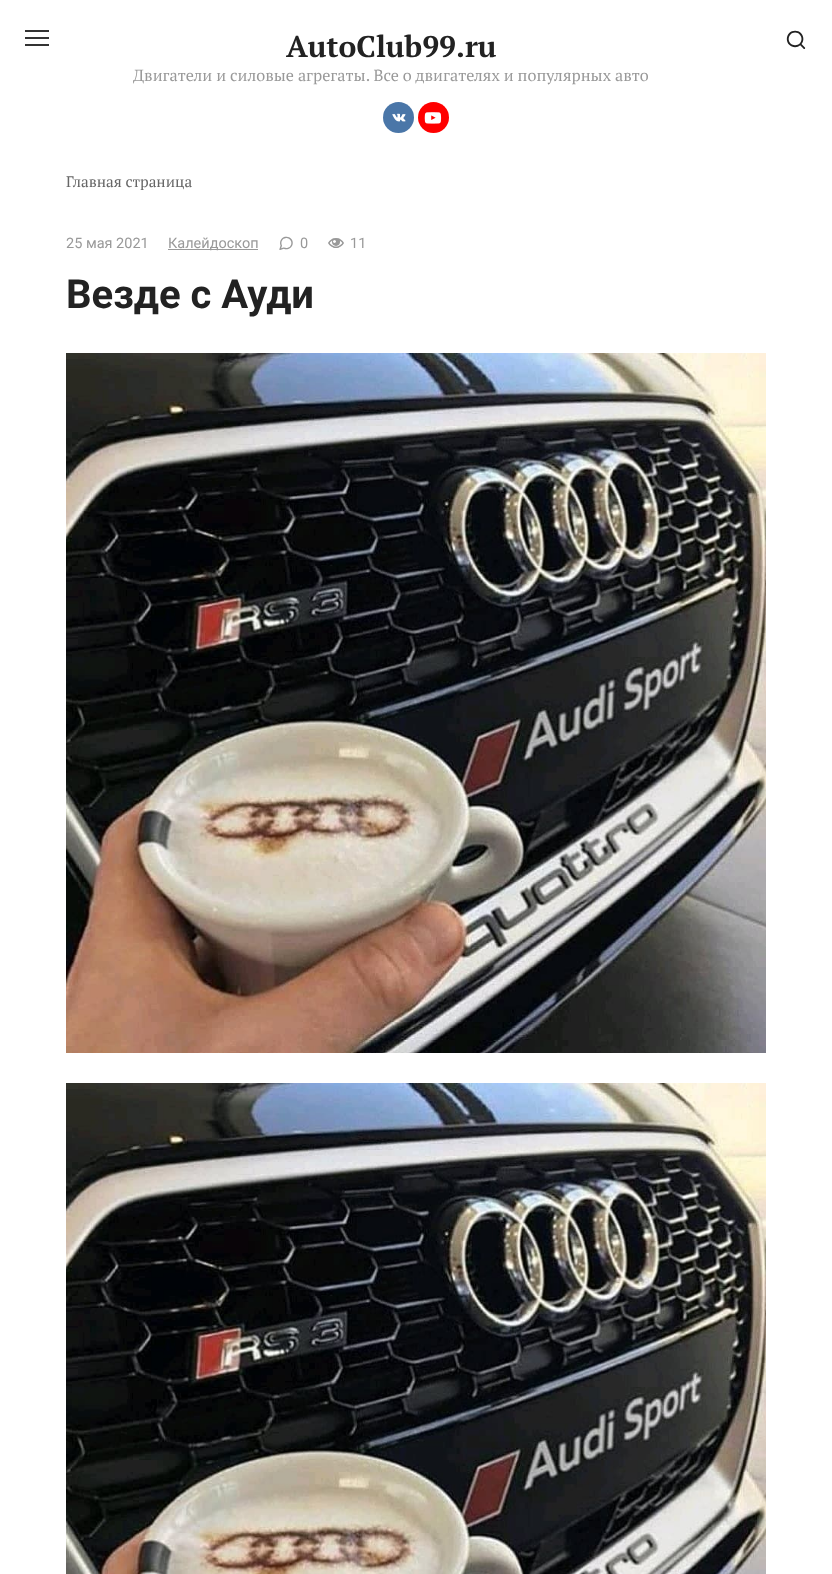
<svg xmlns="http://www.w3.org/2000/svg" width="832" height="1574">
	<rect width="100%" height="100%" fill="#FFFFFF" />
	<rect x="25" y="30" width="24" height="2" fill="#333333" />
	<rect x="25" y="37" width="24" height="2" fill="#333333" />
	<rect x="25" y="44" width="24" height="2" fill="#333333" />
	<text x="286" y="57" font-family="PT Serif" font-size="30" font-weight="700" fill="#222222">AutoClub99.ru</text>
	<text x="133" y="81" font-family="PT Serif" font-size="16.2" fill="#999999">Двигатели и силовые агрегаты. Все о двигателях и популярных авто</text>
	<text x="785" y="49" font-family="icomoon" font-size="22" fill="#222222">🔍</text>
	<circle cx="398.5" cy="117.5" r="15.5" fill="#4A76A8" />
	<image x="392" y="113" width="14" height="9" href="assets/img1.png" />
	<circle cx="433.5" cy="117.5" r="15.5" fill="#FF0000" />
	<image x="424" y="112" width="18" height="12" href="assets/img2.png" />
	<text x="66" y="187" font-family="PT Serif" font-size="15.25" fill="#666666">Главная страница</text>
	<text x="66" y="248" font-family="Roboto" font-size="14.5" fill="#999999">25 мая 2021</text>
	<rect x="168" y="249" width="90" height="1" fill="#999999" />
	<text x="168" y="248" font-family="Roboto" font-size="14.5" fill="#999999">Калейдоскоп</text>
	<text x="278" y="250" font-family="icomoon" font-size="16" fill="#999999">💭</text>
	<text x="300" y="248" font-family="Roboto" font-size="14.5" fill="#999999">0</text>
	<text x="328" y="250" font-family="icomoon" font-size="16" fill="#999999">👁</text>
	<text x="350" y="248" font-family="Roboto" font-size="14.5" fill="#999999">11</text>
	<text x="66" y="308" font-family="Roboto" font-size="40" font-weight="700" fill="#222222">Везде с Ауди</text>
	<image x="66" y="353" width="700" height="700" href="assets/img3.png" />
	<image x="66" y="1083" width="700" height="491" href="assets/img4.png" />
</svg>
